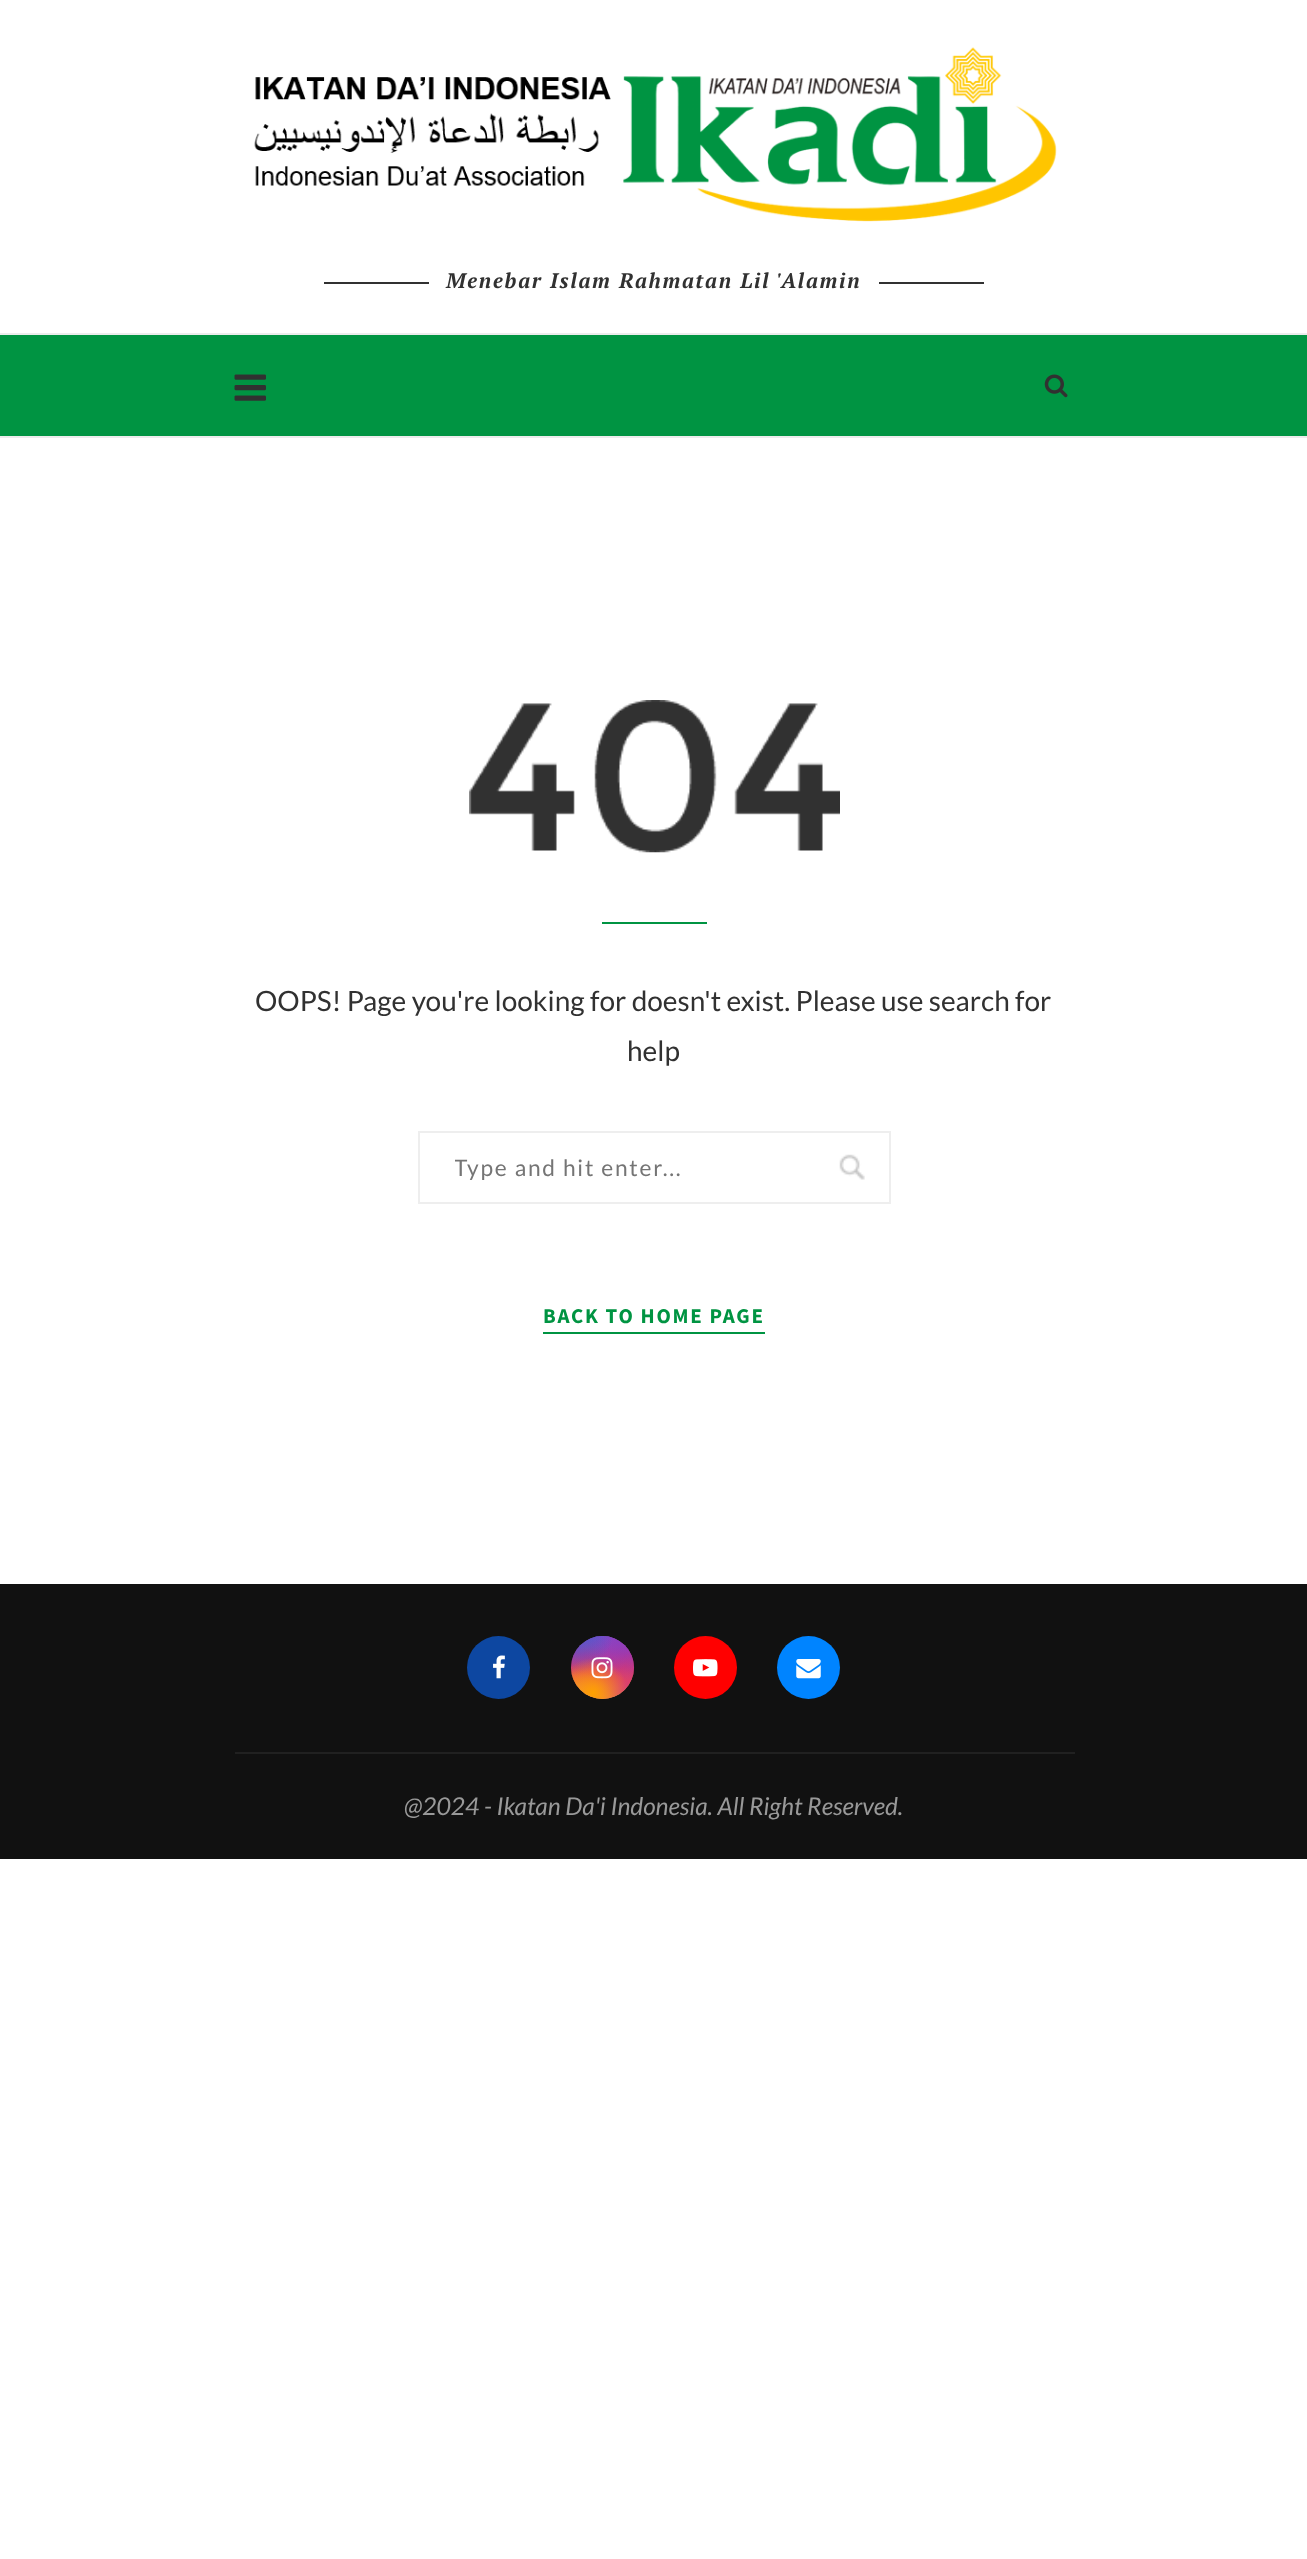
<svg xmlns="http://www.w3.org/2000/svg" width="1307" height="2559">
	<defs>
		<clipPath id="clip1"><rect x="455" y="1153" width="364" height="28" /></clipPath>
		<linearGradient id="g1" gradientUnits="userSpaceOnUse" x1="602" y1="1636" x2="602" y2="1699"><stop offset="0" stop-color="#6559CA" /><stop offset="0.3" stop-color="#BC318F" /><stop offset="0.5" stop-color="#E33F5F" /><stop offset="0.7" stop-color="#F77638" /><stop offset="1" stop-color="#FEC66D" /></linearGradient>
		<radialGradient id="g2" gradientUnits="userSpaceOnUse" cx="634" cy="1699" r="89"><stop offset="0" stop-color="#D43178" /><stop offset="1" stop-color="#D43178" stop-opacity="0" /></radialGradient>
		<radialGradient id="g3" gradientUnits="userSpaceOnUse" cx="0" cy="0" r="1" gradientTransform="matrix(53 0 0 107 608 1624)"><stop offset="0" stop-color="#8F44C7" /><stop offset="0.5" stop-color="#8F44C7" stop-opacity="0" /></radialGradient>
		<radialGradient id="g4" gradientUnits="userSpaceOnUse" cx="634" cy="1636" r="89"><stop offset="0" stop-color="#893DC2" /><stop offset="0.5" stop-color="#893DC2" stop-opacity="0" /></radialGradient>
		<radialGradient id="g5" gradientUnits="userSpaceOnUse" cx="0" cy="0" r="1" gradientTransform="matrix(71 0 0 134 583 1605)"><stop offset="0" stop-color="#5258CF" /><stop offset="0.5" stop-color="#5258CF" stop-opacity="0" /></radialGradient>
		<radialGradient id="g6" gradientUnits="userSpaceOnUse" cx="0" cy="0" r="1" gradientTransform="matrix(89 0 0 111 571 1621)"><stop offset="0" stop-color="#5258CF" /><stop offset="0.5" stop-color="#5258CF" stop-opacity="0" /></radialGradient>
		<radialGradient id="g7" gradientUnits="userSpaceOnUse" cx="571" cy="1724" r="108"><stop offset="0" stop-color="#EFA11C" /><stop offset="0.5" stop-color="#EFA11C" stop-opacity="0" /></radialGradient>
		<radialGradient id="g8" gradientUnits="userSpaceOnUse" cx="593" cy="1693" r="70"><stop offset="0" stop-color="#FFA100" /><stop offset="0.5" stop-color="#FFA100" stop-opacity="0" /></radialGradient>
	</defs>
	<rect width="100%" height="100%" fill="#FFFFFF" />
	<image x="254" y="47" width="803" height="175" href="assets/img1.png" />
	<rect x="324" y="282" width="105" height="2" fill="#313131" />
	<text x="446" y="288" font-family="PT Serif" font-size="21" font-weight="700" font-style="italic" letter-spacing="1.75" fill="#313131">Menebar Islam Rahmatan Lil 'Alamin</text>
	<rect x="879" y="282" width="105" height="2" fill="#313131" />
	<rect x="0" y="335" width="1307" height="101" fill="#009442" />
	<rect x="0" y="333" width="1307" height="2" fill="#ECECEC" />
	<rect x="0" y="436" width="1307" height="2" fill="#ECECEC" />
	<image x="234" y="374" width="32" height="27" href="assets/img2.png" />
	<image x="1044" y="374" width="24" height="24" href="assets/img3.png" />
	<image x="469" y="700" width="371" height="153" href="assets/img4.png" />
	<rect x="602" y="922" width="105" height="2" fill="#009442" />
	<g font-family="Lato" font-size="28" fill="#313131">
		<text x="255" y="1011">OOPS! Page you're looking for doesn't exist. Please use search for</text>
		<text x="627" y="1061">help</text>
	</g>
	<image x="839" y="1154" width="26" height="26" href="assets/img5.png" />
	<rect x="419" y="1132" width="471" height="71" fill="none" stroke="#EEEEEE" stroke-width="2" />
	<g clip-path="url(#clip1)">
		<text x="454" y="1176" font-family="Lato" font-size="22.75" letter-spacing="1.75" fill="#757575">Type and hit enter...</text>
	</g>
	<text x="543" y="1323" font-family="Source Sans Pro" font-size="21" font-weight="700" letter-spacing="1.75" fill="#009442">BACK TO HOME PAGE</text>
	<rect x="543" y="1332" width="222" height="2" fill="#009442" />
	<rect x="0" y="1584" width="1307" height="275" fill="#111111" />
	<rect x="235" y="1752" width="840" height="2" fill="#212121" />
	<circle cx="498.5" cy="1667.5" r="31.5" fill="#0D47A1" />
	<image x="493" y="1655" width="12" height="24" href="assets/img6.png" />
	<circle cx="602.5" cy="1667.5" r="31.5" fill="url(#g1)" />
	<circle cx="602.5" cy="1667.5" r="31.5" fill="url(#g2)" />
	<circle cx="602.5" cy="1667.5" r="31.5" fill="url(#g3)" />
	<circle cx="602.5" cy="1667.5" r="31.5" fill="url(#g4)" />
	<circle cx="602.5" cy="1667.5" r="31.5" fill="url(#g5)" />
	<circle cx="602.5" cy="1667.5" r="31.5" fill="url(#g6)" />
	<circle cx="602.5" cy="1667.5" r="31.5" fill="url(#g7)" />
	<circle cx="602.5" cy="1667.5" r="31.5" fill="url(#g8)" />
	<image x="591" y="1657" width="22" height="22" href="assets/img7.png" />
	<circle cx="705.5" cy="1667.5" r="31.5" fill="#FF0000" />
	<image x="693" y="1659" width="25" height="18" href="assets/img8.png" />
	<circle cx="808.5" cy="1667.5" r="31.5" fill="#0084FF" />
	<image x="796" y="1659" width="25" height="20" href="assets/img9.png" />
	<text x="404" y="1815" font-family="Lato" font-size="24.5" font-style="italic" fill="#999999">@2024 - Ikatan Da'i Indonesia. All Right Reserved.</text>
</svg>
